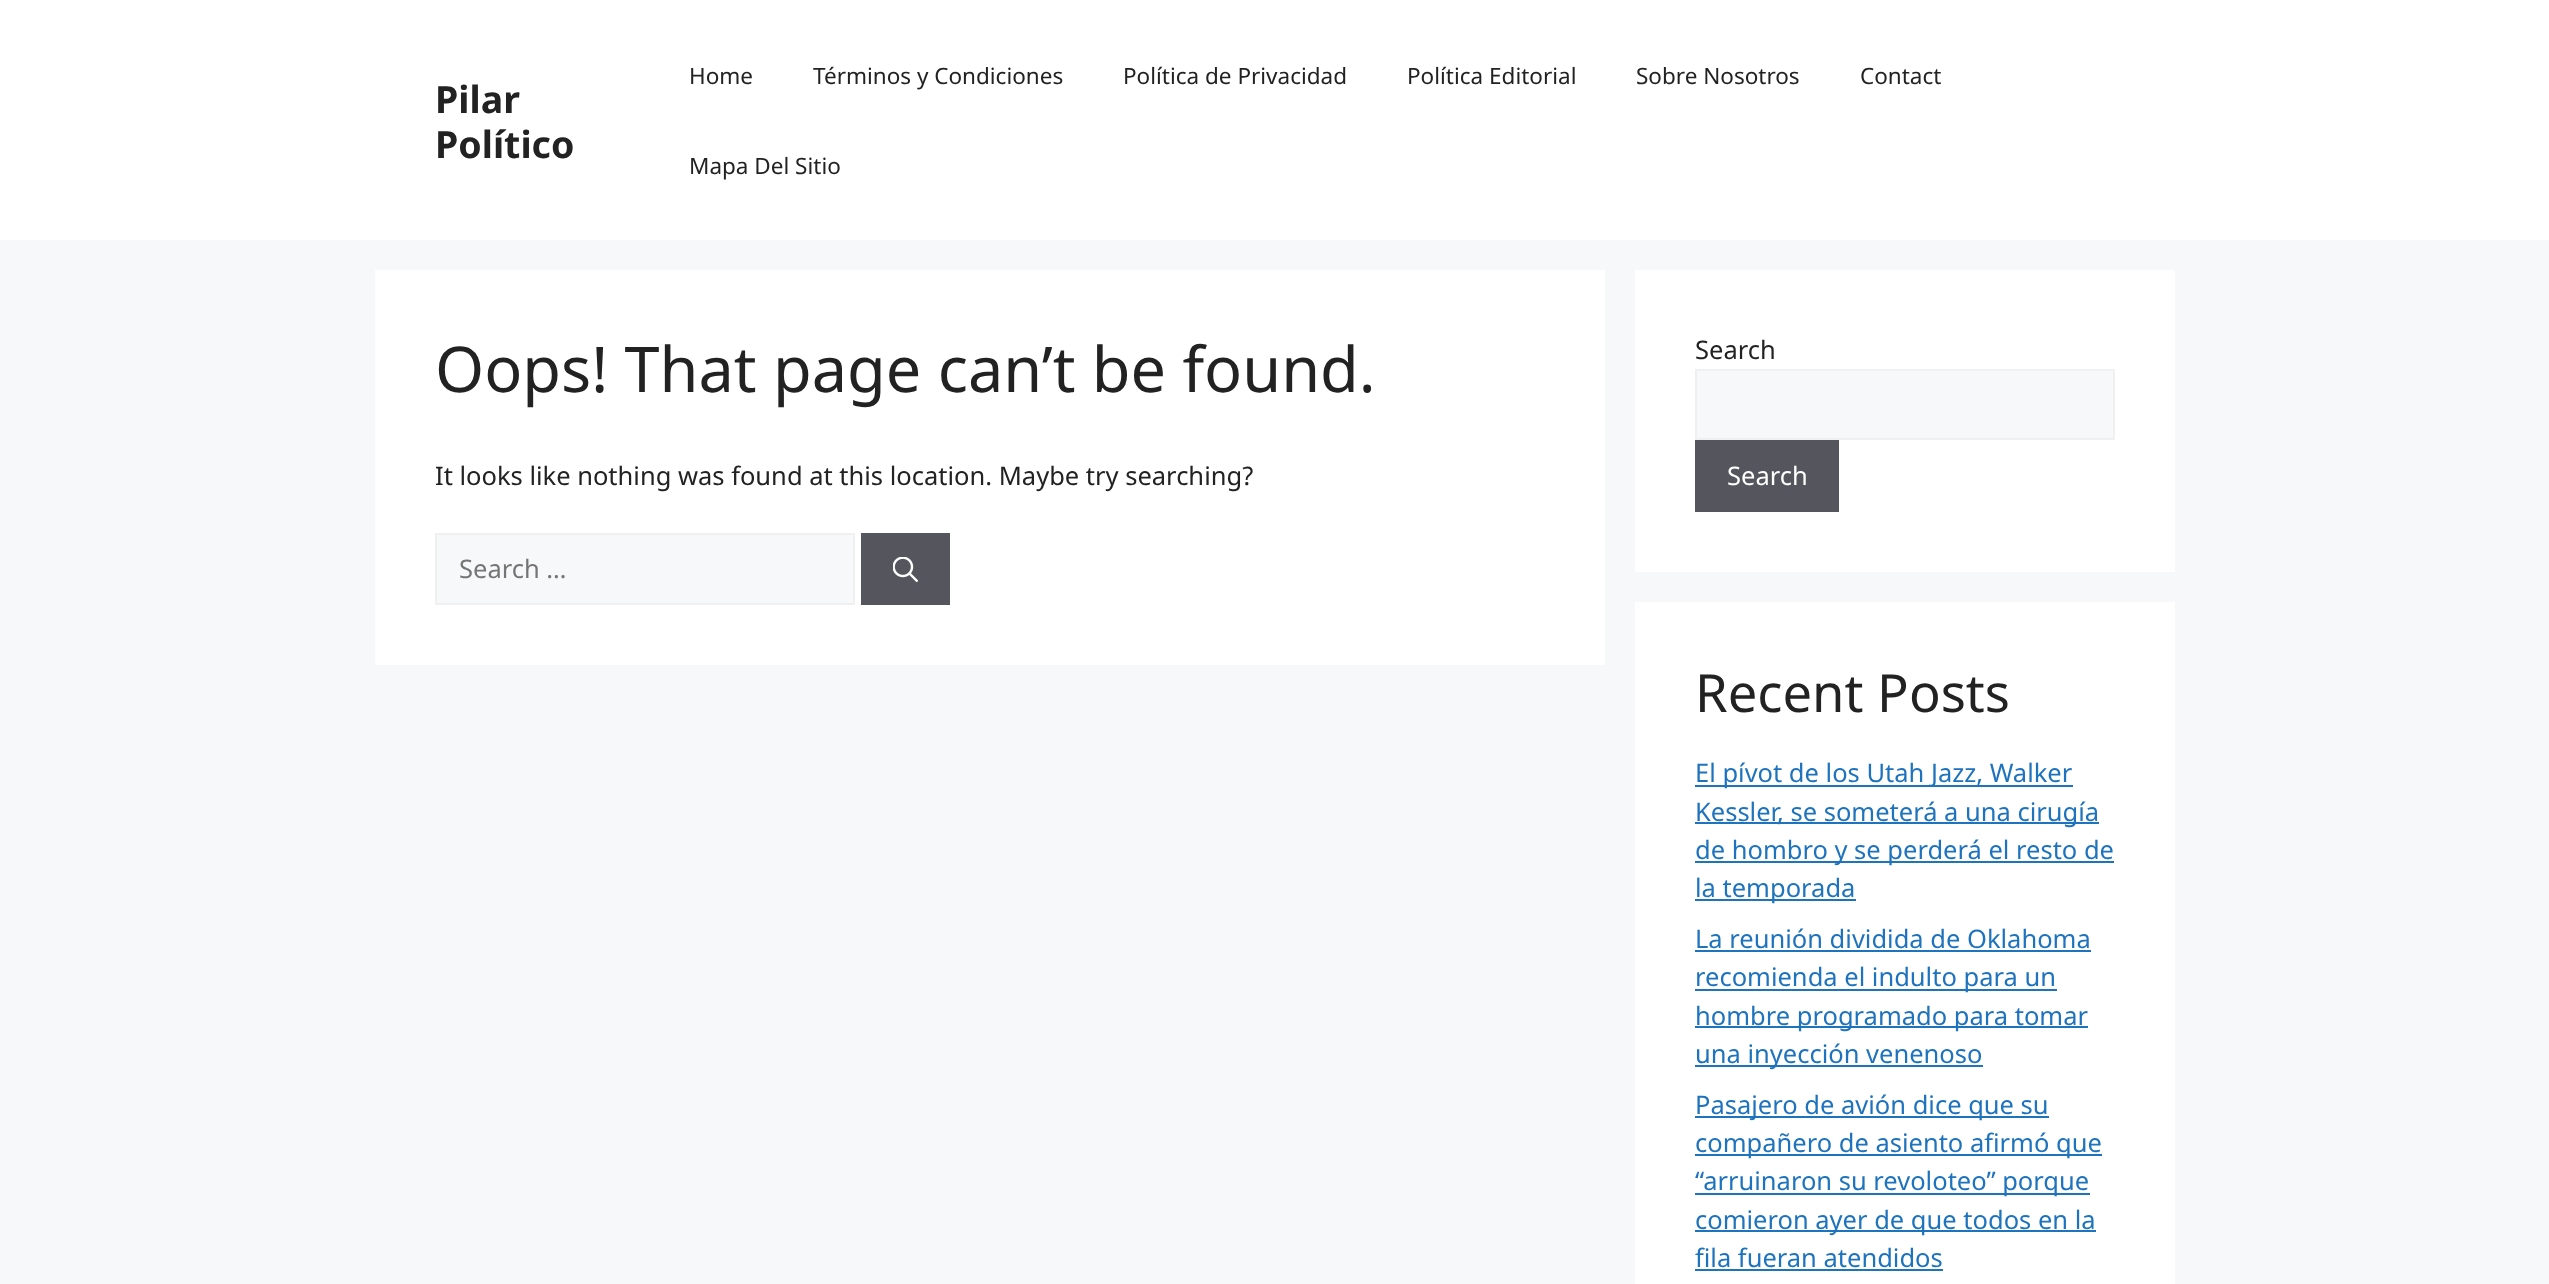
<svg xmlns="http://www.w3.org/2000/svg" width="2549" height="1284">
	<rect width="100%" height="100%" fill="#F7F8F9" />
	<rect x="0" y="0" width="2549" height="240" fill="#FFFFFF" />
	<g font-family="Noto Sans" font-size="37.5" font-weight="700" fill="#222222">
		<text x="435" y="113">Pilar</text>
		<text x="435" y="158">Político</text>
	</g>
	<g font-family="Noto Sans" font-size="22.5" fill="#222222">
		<text x="689" y="84">Home</text>
		<text x="813" y="84">Términos y Condiciones</text>
		<text x="1123" y="84">Política de Privacidad</text>
		<text x="1407" y="84">Política Editorial</text>
		<text x="1636" y="84">Sobre Nosotros</text>
		<text x="1860" y="84">Contact</text>
		<text x="689" y="174">Mapa Del Sitio</text>
	</g>
	<rect x="375" y="270" width="1230" height="395" fill="#FFFFFF" />
	<text x="435" y="392" font-family="Noto Sans" font-size="63" fill="#222222">Oops! That page can’t be found.</text>
	<text x="435" y="485" font-family="Noto Sans" font-size="25.5" fill="#222222">It looks like nothing was found at this location. Maybe try searching?</text>
	<rect x="436" y="534" width="418" height="70" fill="#F7F8F9" stroke="#F0F0F0" stroke-width="2" />
	<text x="459" y="578" font-family="Noto Sans" font-size="25.5" fill="#757575">Search …</text>
	<rect x="861" y="533" width="89" height="72" fill="#55555E" />
	<image x="893" y="557" width="25" height="25" href="assets/img1.png" />
	<rect x="1635" y="270" width="540" height="302" fill="#FFFFFF" />
	<text x="1695" y="359" font-family="Noto Sans" font-size="25.5" fill="#222222">Search</text>
	<rect x="1696" y="370" width="418" height="69" fill="#F7F8F9" stroke="#F0F0F0" stroke-width="2" />
	<rect x="1695" y="440" width="144" height="72" fill="#55555E" />
	<text x="1727" y="485" font-family="Noto Sans" font-size="25.5" fill="#FFFFFF">Search</text>
	<rect x="1635" y="602" width="540" height="682" fill="#FFFFFF" />
	<text x="1695" y="712" font-family="Noto Sans" font-size="52.5" fill="#222222">Recent Posts</text>
	<rect x="1695" y="785" width="378" height="2" fill="#1E73BE" />
	<text x="1695" y="782" font-family="Noto Sans" font-size="25.5" fill="#1E73BE">El pívot de los Utah Jazz, Walker</text>
	<rect x="1695" y="822" width="404" height="2" fill="#1E73BE" />
	<text x="1695" y="821" font-family="Noto Sans" font-size="25.5" fill="#1E73BE">Kessler, se someterá a una cirugía</text>
	<rect x="1695" y="861" width="419" height="2" fill="#1E73BE" />
	<text x="1695" y="859" font-family="Noto Sans" font-size="25.5" fill="#1E73BE">de hombro y se perderá el resto de</text>
	<rect x="1695" y="899" width="161" height="2" fill="#1E73BE" />
	<g font-family="Noto Sans" font-size="25.5" fill="#1E73BE">
		<text x="1695" y="897">la temporada</text>
		<text x="1695" y="948">La reunión dividida de Oklahoma</text>
	</g>
	<rect x="1695" y="950" width="396" height="2" fill="#1E73BE" />
	<rect x="1695" y="989" width="362" height="2" fill="#1E73BE" />
	<text x="1695" y="986" font-family="Noto Sans" font-size="25.5" fill="#1E73BE">recomienda el indulto para un</text>
	<rect x="1695" y="1026" width="393" height="2" fill="#1E73BE" />
	<text x="1695" y="1025" font-family="Noto Sans" font-size="25.5" fill="#1E73BE">hombre programado para tomar</text>
	<rect x="1695" y="1065" width="288" height="2" fill="#1E73BE" />
	<text x="1695" y="1063" font-family="Noto Sans" font-size="25.5" fill="#1E73BE">una inyección venenoso</text>
	<rect x="1695" y="1116" width="354" height="2" fill="#1E73BE" />
	<text x="1695" y="1114" font-family="Noto Sans" font-size="25.5" fill="#1E73BE">Pasajero de avión dice que su</text>
	<rect x="1695" y="1154" width="407" height="2" fill="#1E73BE" />
	<text x="1695" y="1152" font-family="Noto Sans" font-size="25.5" fill="#1E73BE">compañero de asiento afirmó que</text>
	<rect x="1695" y="1193" width="395" height="2" fill="#1E73BE" />
	<text x="1695" y="1190" font-family="Noto Sans" font-size="25.5" fill="#1E73BE">“arruinaron su revoloteo” porque</text>
	<rect x="1695" y="1230" width="401" height="2" fill="#1E73BE" />
	<g font-family="Noto Sans" font-size="25.5" fill="#1E73BE">
		<text x="1695" y="1229">comieron ayer de que todos en la</text>
		<text x="1695" y="1267">fila fueran atendidos</text>
	</g>
	<rect x="1695" y="1269" width="248" height="2" fill="#1E73BE" />
</svg>
